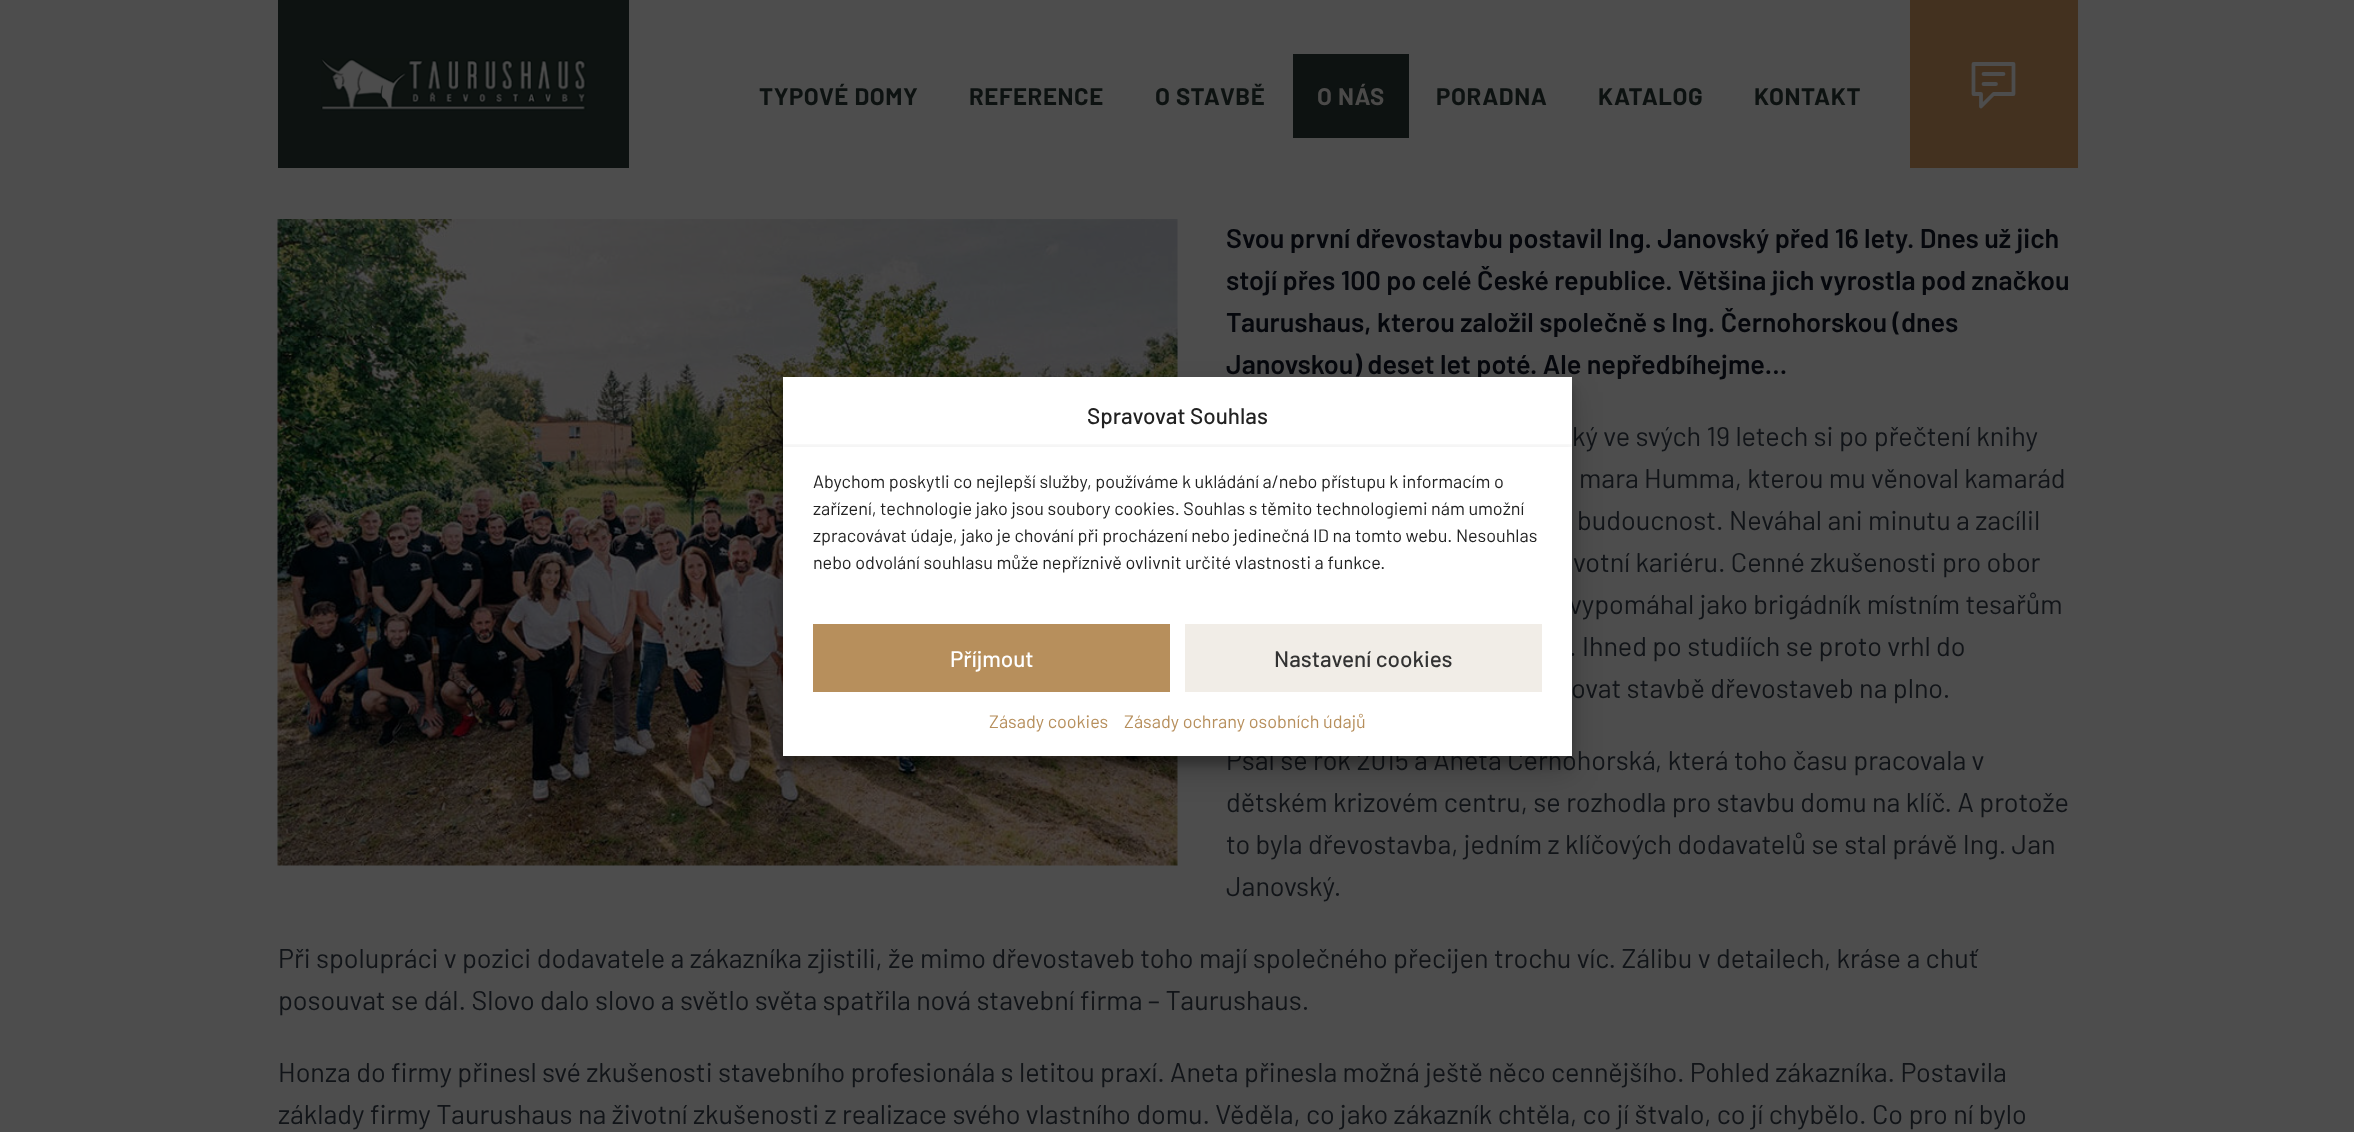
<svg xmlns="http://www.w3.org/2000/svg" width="2354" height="1132">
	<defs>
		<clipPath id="clip1"><rect x="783" y="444" width="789" height="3" /></clipPath>
	</defs>
	<rect width="100%" height="100%" fill="#4D4D4D" />
	<rect x="278" y="0" width="351" height="168" fill="#0D1211" />
	<image x="321" y="58" width="266" height="53" href="assets/img1.png" />
	<g font-family="Barlow" font-size="24" font-weight="700" letter-spacing="0.6" fill="#0D1211">
		<text x="759" y="105">TYPOVÉ DOMY</text>
		<text x="969" y="105">REFERENCE</text>
		<text x="1155" y="105">O STAVBĚ</text>
	</g>
	<rect x="1293" y="54" width="116" height="84" fill="#0D1211" />
	<text x="1317" y="105" font-family="Barlow" font-size="24" font-weight="700" letter-spacing="0.6" fill="#4B4A49">O NÁS</text>
	<g font-family="Barlow" font-size="24" font-weight="700" letter-spacing="0.6" fill="#0D1211">
		<text x="1436" y="105">PORADNA</text>
		<text x="1598" y="105">KATALOG</text>
		<text x="1754" y="105">KONTAKT</text>
	</g>
	<rect x="1910" y="0" width="168" height="168" fill="#43311F" />
	<path d="M1983.5 74H2003.5M1983.5 84H1996M1981 94V106.5L1993.5 94H2013.5V64H1973.5V94Z" fill="none" stroke="#4D4D4D" stroke-width="3.8" stroke-linecap="round" stroke-linejoin="round" />
	<image x="277" y="219" width="901" height="647" href="assets/img2.png" />
	<g font-family="Barlow" font-size="27" font-weight="600" fill="#05070C">
		<text x="1226" y="248">Svou první dřevostavbu postavil Ing. Janovský před 16 lety. Dnes už jich</text>
		<text x="1226" y="290">stojí přes 100 po celé České republice. Většina jich vyrostla pod značkou</text>
		<text x="1226" y="332">Taurushaus, kterou založil společně s Ing. Černohorskou (dnes</text>
		<text x="1226" y="374">Janovskou) deset let poté. Ale nepředbíhejme…</text>
	</g>
	<g font-family="Barlow" font-size="27" fill="#111418">
		<text x="1572" y="446">ký ve svých 19 letech si po přečtení knihy</text>
		<text x="1579" y="488">mara Humma, kterou mu věnoval kamarád</text>
		<text x="1577" y="530">budoucnost. Neváhal ani minutu a zacílil</text>
		<text x="1573" y="572">votní kariéru. Cenné zkušenosti pro obor</text>
		<text x="1569" y="614">vypomáhal jako brigádník místním tesařům</text>
		<text x="1569" y="656">. Ihned po studiích se proto vrhl do</text>
		<text x="1571" y="698">ovat stavbě dřevostaveb na plno.</text>
		<text x="1226" y="770">Psal se rok 2015 a Aneta Černohorská, která toho času pracovala v</text>
		<text x="1226" y="812">dětském krizovém centru, se rozhodla pro stavbu domu na klíč. A protože</text>
		<text x="1226" y="854">to byla dřevostavba, jedním z klíčových dodavatelů se stal právě Ing. Jan</text>
		<text x="1226" y="896">Janovský.</text>
		<text x="278" y="968">Při spolupráci v pozici dodavatele a zákazníka zjistili, že mimo dřevostaveb toho mají společného přecijen trochu víc. Zálibu v detailech, kráse a chuť</text>
		<text x="278" y="1010">posouvat se dál. Slovo dalo slovo a světlo světa spatřila nová stavební firma – Taurushaus.</text>
		<text x="278" y="1082">Honza do firmy přinesl své zkušenosti stavebního profesionála s letitou praxí. Aneta přinesla možná ještě něco cennějšího. Pohled zákazníka. Postavila</text>
		<text x="278" y="1124">základy firmy Taurushaus na životní zkušenosti z realizace svého vlastního domu. Věděla, co jako zákazník chtěla, co jí štvalo, co jí chybělo. Co pro ní bylo</text>
	</g>
	<rect x="783" y="386" width="789" height="379" fill="#000000" fill-opacity="0.23" filter="blur(4.5px)" />
	<rect x="783" y="392" width="789" height="379" fill="#000000" fill-opacity="0.19" filter="blur(15px)" />
	<rect x="783" y="377" width="789" height="379" fill="#FFFFFF" />
	<text x="1087" y="424" font-family="Barlow" font-size="22.5" font-weight="500" fill="#222222">Spravovat Souhlas</text>
	<g clip-path="url(#clip1)">
		<rect x="783" y="444" width="789" height="5" fill="#000000" fill-opacity="0.05" filter="blur(2px)" />
	</g>
	<g font-family="Barlow" font-size="18" fill="#222222">
		<text x="813" y="488">Abychom poskytli co nejlepší služby, používáme k ukládání a/nebo přístupu k informacím o</text>
		<text x="813" y="515">zařízení, technologie jako jsou soubory cookies. Souhlas s těmito technologiemi nám umožní</text>
		<text x="813" y="542">zpracovávat údaje, jako je chování při procházení nebo jedinečná ID na tomto webu. Nesouhlas</text>
		<text x="813" y="569">nebo odvolání souhlasu může nepříznivě ovlivnit určité vlastnosti a funkce.</text>
	</g>
	<rect x="813" y="624" width="357" height="68" fill="#B78F5C" />
	<text x="950" y="667" font-family="Barlow" font-size="22.5" font-weight="500" fill="#FFFFFF">Příjmout</text>
	<rect x="1185" y="624" width="357" height="68" fill="#F1EDE7" />
	<text x="1274" y="667" font-family="Barlow" font-size="22.5" font-weight="500" fill="#333333">Nastavení cookies</text>
	<g font-family="Barlow" font-size="18" fill="#B78F5C">
		<text x="989" y="728">Zásady cookies</text>
		<text x="1124" y="728">Zásady ochrany osobních údajů</text>
	</g>
</svg>
